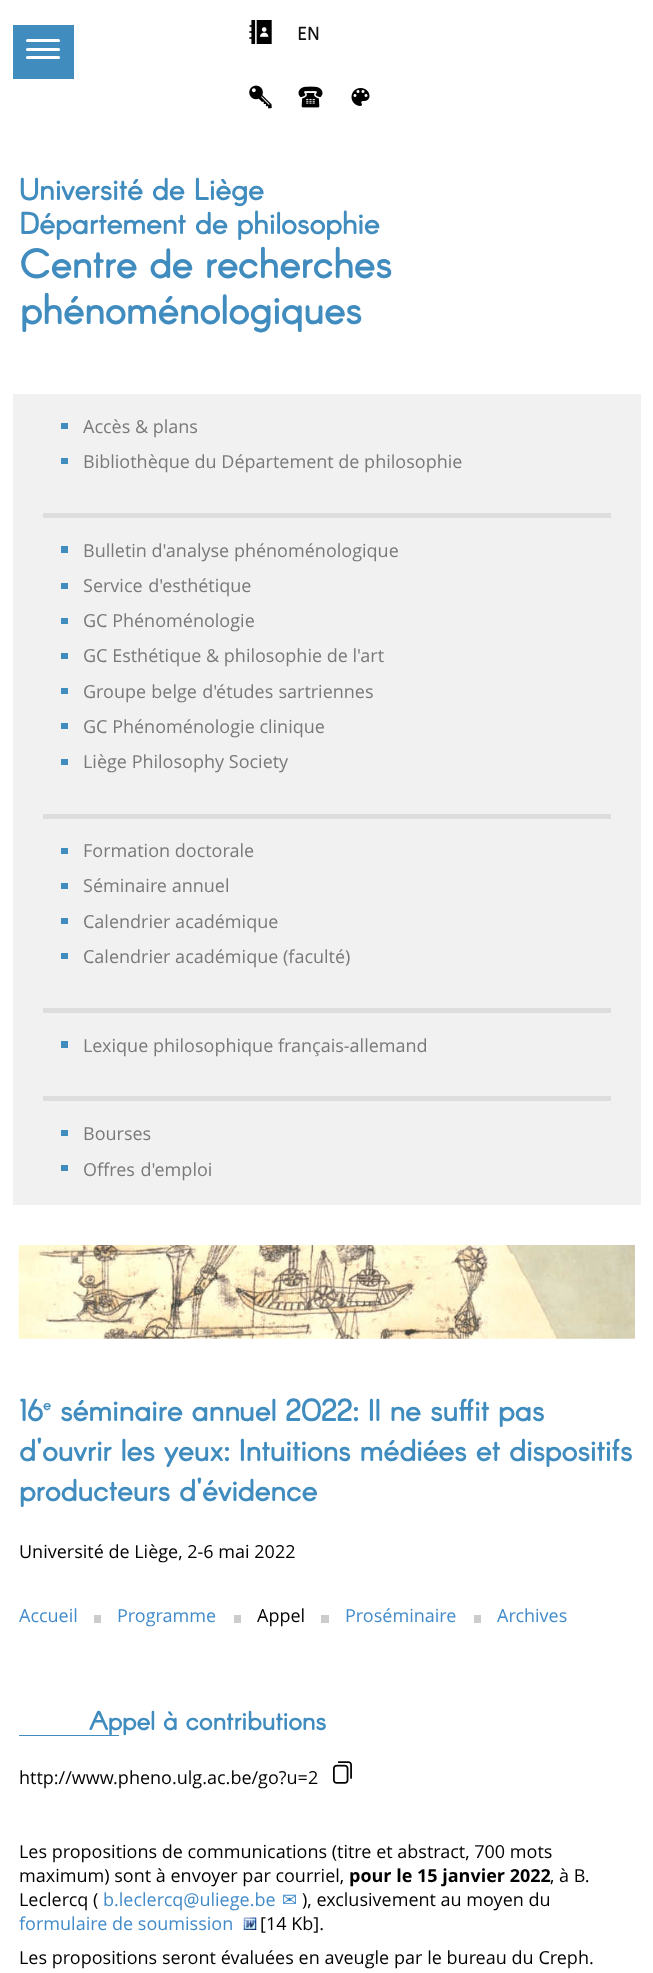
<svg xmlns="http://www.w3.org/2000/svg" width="653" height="1973">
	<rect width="100%" height="100%" fill="#FFFFFF" />
	<rect x="13" y="25" width="61" height="54" fill="#408CBF" />
	<rect x="26" y="39" width="34" height="3" rx="1.5" fill="#FFFFFF" />
	<rect x="26" y="48" width="34" height="3" rx="1.5" fill="#FFFFFF" />
	<rect x="26" y="56" width="34" height="3" rx="1.5" fill="#FFFFFF" />
	<image x="249" y="20" width="23" height="24" href="assets/img1.png" />
	<text x="297" y="40" font-family="Calibri" font-size="20" font-weight="700" fill="#111111">EN</text>
	<image x="249" y="85" width="23" height="24" href="assets/img2.png" />
	<image x="298" y="86" width="25" height="22" href="assets/img3.png" />
	<image x="351" y="88" width="19" height="18" href="assets/img4.png" />
	<g font-family="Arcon" font-size="30" font-weight="700" fill="#408CBF">
		<text x="19" y="200">Université de Liège</text>
		<text x="19" y="234">Département de philosophie</text>
	</g>
	<g font-family="Arcon" font-size="40" font-weight="700" fill="#408CBF">
		<text x="20" y="278">Centre de recherches</text>
		<text x="20" y="324">phénoménologiques</text>
	</g>
	<rect x="13" y="394" width="628" height="811" fill="#F1F1F1" />
	<rect x="61" y="423" width="7" height="6" fill="#408CBF" />
	<text x="83" y="433" font-family="Open Sans" font-size="18" fill="#797979">Accès &amp; plans</text>
	<rect x="61" y="458" width="7" height="6" fill="#408CBF" />
	<text x="83" y="468" font-family="Open Sans" font-size="18" fill="#797979">Bibliothèque du Département de philosophie</text>
	<rect x="43" y="513" width="568" height="5" fill="#DDDDDD" />
	<rect x="61" y="546" width="7" height="7" fill="#408CBF" />
	<text x="83" y="557" font-family="Open Sans" font-size="18" fill="#797979">Bulletin d'analyse phénoménologique</text>
	<rect x="61" y="583" width="7" height="6" fill="#408CBF" />
	<text x="83" y="592" word-spacing="1" font-family="Open Sans" font-size="18" fill="#797979">Service d'esthétique</text>
	<rect x="61" y="618" width="7" height="6" fill="#408CBF" />
	<text x="83" y="627" font-family="Open Sans" font-size="18" fill="#797979">GC Phénoménologie</text>
	<rect x="61" y="653" width="7" height="6" fill="#408CBF" />
	<text x="83" y="662" font-family="Open Sans" font-size="18" fill="#797979">GC Esthétique &amp; philosophie de l'art</text>
	<rect x="61" y="688" width="7" height="6" fill="#408CBF" />
	<text x="83" y="698" word-spacing="0.5" font-family="Open Sans" font-size="18" fill="#797979">Groupe belge d'études sartriennes</text>
	<rect x="61" y="723" width="7" height="6" fill="#408CBF" />
	<text x="83" y="733" font-family="Open Sans" font-size="18" fill="#797979">GC Phénoménologie clinique</text>
	<rect x="61" y="759" width="7" height="6" fill="#408CBF" />
	<text x="83" y="768" font-family="Open Sans" font-size="18" fill="#797979">Liège Philosophy Society</text>
	<rect x="43" y="814" width="568" height="5" fill="#DDDDDD" />
	<rect x="61" y="848" width="7" height="6" fill="#408CBF" />
	<text x="83" y="857" font-family="Open Sans" font-size="18" fill="#797979">Formation doctorale</text>
	<rect x="61" y="883" width="7" height="6" fill="#408CBF" />
	<text x="83" y="892" font-family="Open Sans" font-size="18" fill="#797979">Séminaire annuel</text>
	<rect x="61" y="918" width="7" height="6" fill="#408CBF" />
	<text x="83" y="928" font-family="Open Sans" font-size="18" fill="#797979">Calendrier académique</text>
	<rect x="61" y="953" width="7" height="6" fill="#408CBF" />
	<text x="83" y="963" font-family="Open Sans" font-size="18" fill="#797979">Calendrier académique (faculté)</text>
	<rect x="43" y="1008" width="568" height="5" fill="#DDDDDD" />
	<rect x="61" y="1041" width="7" height="7" fill="#408CBF" />
	<text x="83" y="1052" font-family="Open Sans" font-size="18" fill="#797979">Lexique philosophique français-allemand</text>
	<rect x="43" y="1096" width="568" height="5" fill="#DDDDDD" />
	<rect x="61" y="1130" width="7" height="6" fill="#408CBF" />
	<text x="83" y="1140" font-family="Open Sans" font-size="18" fill="#797979">Bourses</text>
	<rect x="61" y="1165" width="7" height="6" fill="#408CBF" />
	<text x="83" y="1176" word-spacing="1" font-family="Open Sans" font-size="18" fill="#797979">Offres d'emploi</text>
	<image x="18" y="1245" width="617" height="94" href="assets/img5.png" />
	<text x="19" y="1421" font-family="Arcon" font-size="30" font-weight="700" fill="#408CBF">16</text>
	<text x="43" y="1410" font-family="Arcon" font-size="15" font-weight="700" fill="#408CBF">e</text>
	<g font-family="Arcon" font-size="30" font-weight="700" fill="#408CBF">
		<text x="60" y="1421">séminaire annuel 2022: Il ne suffit pas</text>
		<text x="19" y="1461">d'ouvrir les yeux: Intuitions médiées et dispositifs</text>
		<text x="19" y="1501">producteurs d'évidence</text>
	</g>
	<text x="19" y="1558" font-family="Open Sans" font-size="18" fill="#000000">Université de Liège, 2-6 mai 2022</text>
	<text x="19" y="1622" font-family="Open Sans" font-size="18" fill="#428BCA">Accueil</text>
	<rect x="94" y="1615" width="7" height="8" fill="#CCCCCC" />
	<text x="117" y="1622" font-family="Open Sans" font-size="18" fill="#428BCA">Programme</text>
	<rect x="234" y="1615" width="7" height="8" fill="#CCCCCC" />
	<text x="257" y="1622" font-family="Open Sans" font-size="18" fill="#000000">Appel</text>
	<rect x="321" y="1615" width="8" height="8" fill="#CCCCCC" />
	<text x="345" y="1622" font-family="Open Sans" font-size="18" fill="#428BCA">Proséminaire</text>
	<rect x="474" y="1615" width="7" height="8" fill="#CCCCCC" />
	<text x="497" y="1622" font-family="Open Sans" font-size="18" fill="#428BCA">Archives</text>
	<rect x="19" y="1735" width="100" height="1" fill="#408CBF" />
	<text x="89" y="1730" font-family="Arcon" font-size="26" font-weight="700" fill="#408CBF">Appel à contributions</text>
	<text x="19" y="1784" font-family="Open Sans" font-size="18" fill="#000000">http://www.pheno.ulg.ac.be/go?u=2</text>
	<image x="333" y="1761" width="19" height="23" href="assets/img6.png" />
	<g font-family="Open Sans" font-size="18" fill="#000000">
		<text x="19" y="1858">Les propositions de communications (titre et abstract, 700 mots</text>
		<text x="19" y="1882">maximum) sont à envoyer par courriel,</text>
	</g>
	<text x="349" y="1882" font-family="Open Sans" font-size="18" font-weight="700" fill="#000000">pour le 15 janvier 2022</text>
	<g font-family="Open Sans" font-size="18" fill="#000000">
		<text x="550" y="1882">, à B.</text>
		<text x="19" y="1906">Leclercq (</text>
	</g>
	<text x="103" y="1906" font-family="Open Sans" font-size="18" fill="#428BCA">b.leclercq@uliege.be</text>
	<text x="282" y="1906" font-family="DejaVu Sans" font-size="18" fill="#428BCA">✉</text>
	<text x="302" y="1906" font-family="Open Sans" font-size="18" fill="#000000">), exclusivement au moyen du</text>
	<text x="19" y="1930" font-family="Open Sans" font-size="18" fill="#428BCA">formulaire de soumission</text>
	<image x="243" y="1917" width="14" height="13" href="assets/img7.png" />
	<g font-family="Open Sans" font-size="18" fill="#000000">
		<text x="260" y="1930">[14 Kb].</text>
		<text x="19" y="1964" word-spacing="0.1">Les propositions seront évaluées en aveugle par le bureau du Creph.</text>
	</g>
</svg>
